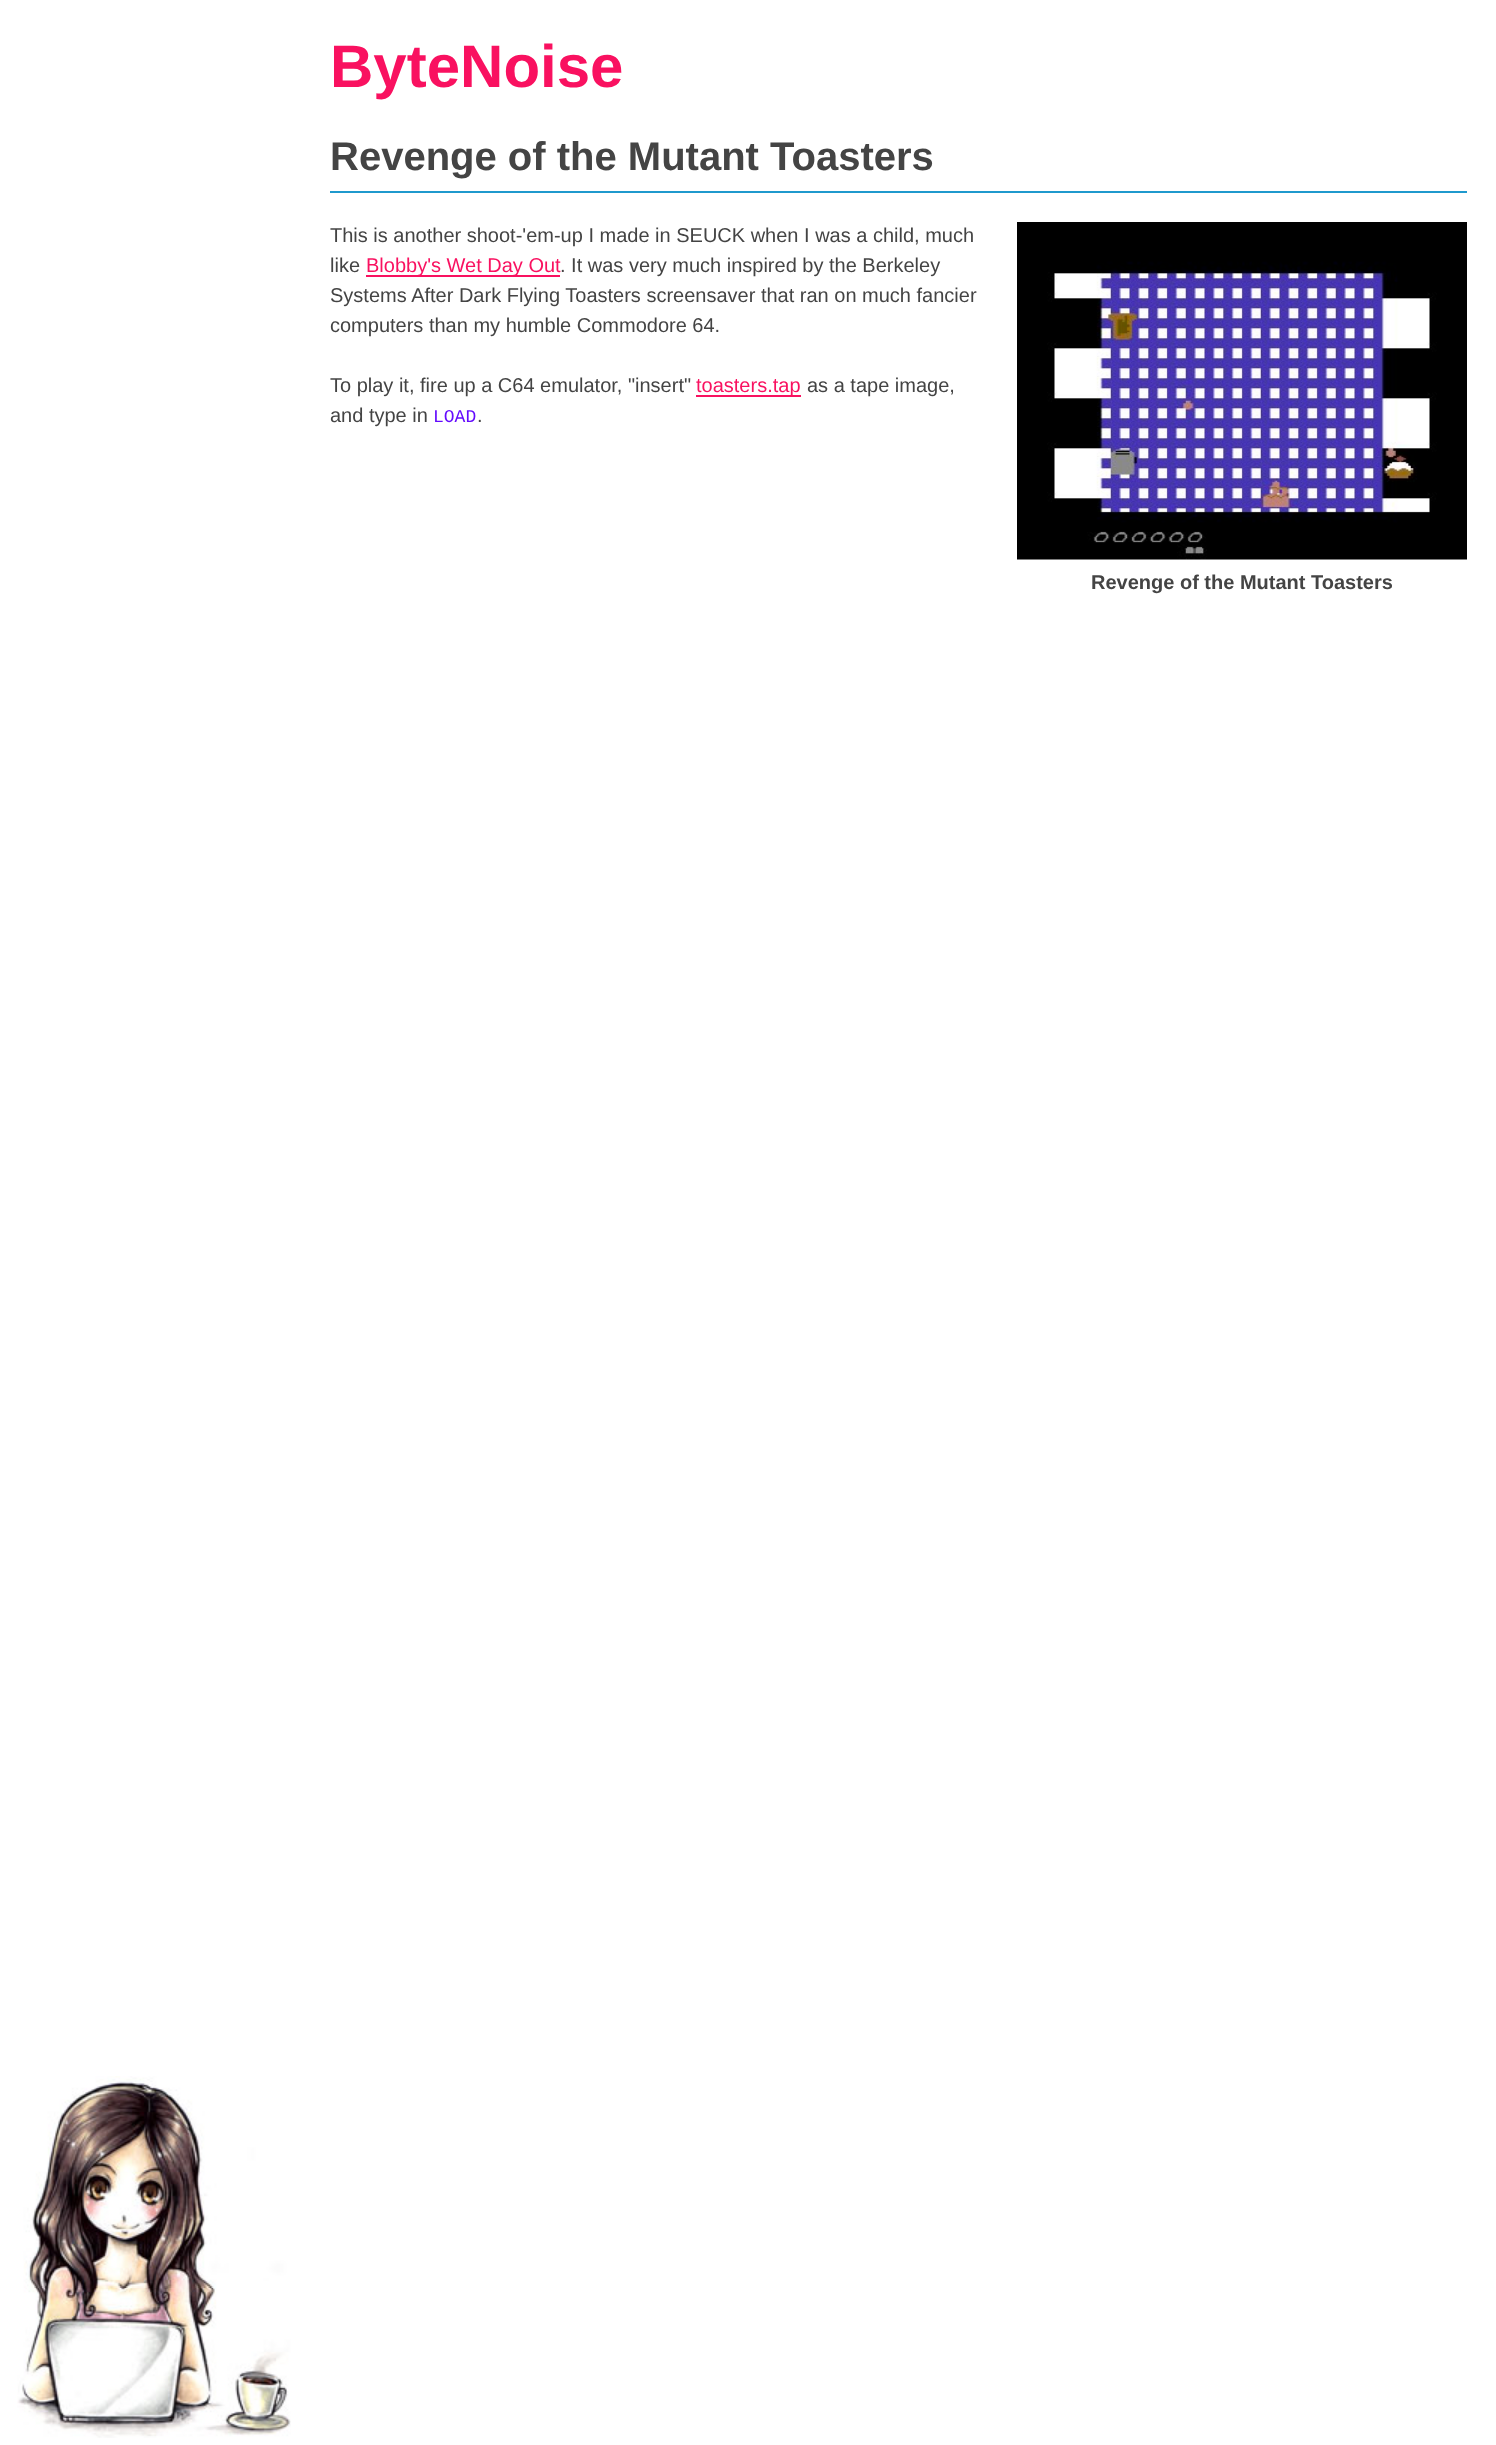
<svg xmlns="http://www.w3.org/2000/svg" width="1496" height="2445">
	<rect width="100%" height="100%" fill="#FFFFFF" />
	<image x="17" y="2076" width="274" height="362" href="assets/img1.png" />
	<text x="330" y="87" font-family="Liberation Sans" font-size="60" font-weight="700" fill="#F91160">ByteNoise</text>
	<rect x="330" y="191" width="1137" height="2" fill="#1F99CD" />
	<text x="330" y="170" font-family="Liberation Sans" font-size="40" font-weight="700" fill="#444444">Revenge of the Mutant Toasters</text>
	<g font-family="Liberation Sans" font-size="20" fill="#444444">
		<text x="330" y="242">This is another shoot-'em-up I made in SEUCK when I was a child, much</text>
		<text x="330" y="272">like</text>
	</g>
	<rect x="366" y="275" width="194" height="2" fill="#F91160" />
	<text x="366" y="272" font-family="Liberation Sans" font-size="20" fill="#F91160">Blobby's Wet Day Out</text>
	<g font-family="Liberation Sans" font-size="20" fill="#444444">
		<text x="560" y="272">. It was very much inspired by the Berkeley</text>
		<text x="330" y="302">Systems After Dark Flying Toasters screensaver that ran on much fancier</text>
		<text x="330" y="332">computers than my humble Commodore 64.</text>
		<text x="330" y="392">To play it, fire up a C64 emulator, "insert"</text>
	</g>
	<rect x="696" y="395" width="105" height="2" fill="#F91160" />
	<text x="696" y="392" font-family="Liberation Sans" font-size="20" fill="#F91160">toasters.tap</text>
	<g font-family="Liberation Sans" font-size="20" fill="#444444">
		<text x="807" y="392">as a tape image,</text>
		<text x="330" y="422">and type in</text>
	</g>
	<text x="433" y="422" font-family="Liberation Mono" font-size="18" fill="#640BFD">LOAD</text>
	<text x="477" y="422" font-family="Liberation Sans" font-size="20" fill="#444444">.</text>
	<image x="1017" y="222" width="450" height="338" href="assets/img2.png" />
	<text x="1091" y="589" font-family="Liberation Sans" font-size="20" font-weight="700" fill="#444444">Revenge of the Mutant Toasters</text>
</svg>
